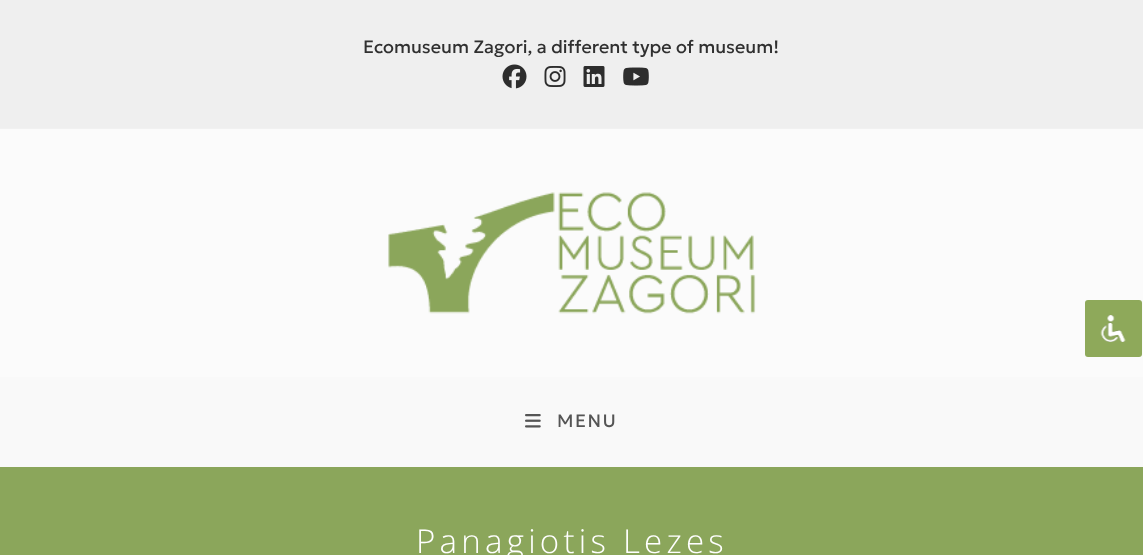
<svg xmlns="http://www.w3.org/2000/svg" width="1143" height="555">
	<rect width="100%" height="100%" fill="#8BA65B" />
	<rect x="0" y="0" width="1143" height="128" fill="#EFEFEF" />
	<rect x="0" y="128" width="1143" height="1" fill="#F1F1F1" />
	<text x="363" y="53" font-family="Geologica" font-size="18" font-weight="100" fill="#303030">Ecomuseum Zagori, a different type of museum!</text>
	<image x="502" y="64" width="25" height="25" href="assets/img1.png" />
	<image x="544" y="66" width="22" height="21" href="assets/img2.png" />
	<image x="583" y="66" width="22" height="21" href="assets/img3.png" />
	<image x="623" y="67" width="26" height="19" href="assets/img4.png" />
	<rect x="0" y="377" width="1143" height="90" fill="#F9F9F9" />
	<rect x="0" y="129" width="1143" height="248" fill="#FBFBFB" />
	<image x="388" y="192" width="368" height="122" href="assets/img5.png" />
	<image x="525" y="414" width="16" height="14" href="assets/img6.png" />
	<text x="557" y="427" font-family="Geologica" font-size="18" font-weight="100" letter-spacing="1.5" fill="#555555">MENU</text>
	<text x="416" y="553" font-family="Open Sans" font-size="33" font-weight="300" letter-spacing="4.25" fill="#FFFFFF">Panagiotis Lezes</text>
	<rect x="1085" y="300" width="57" height="57" rx="3" fill="#8EA95A" />
	<image x="1100" y="315" width="26" height="27" href="assets/img7.png" />
</svg>
